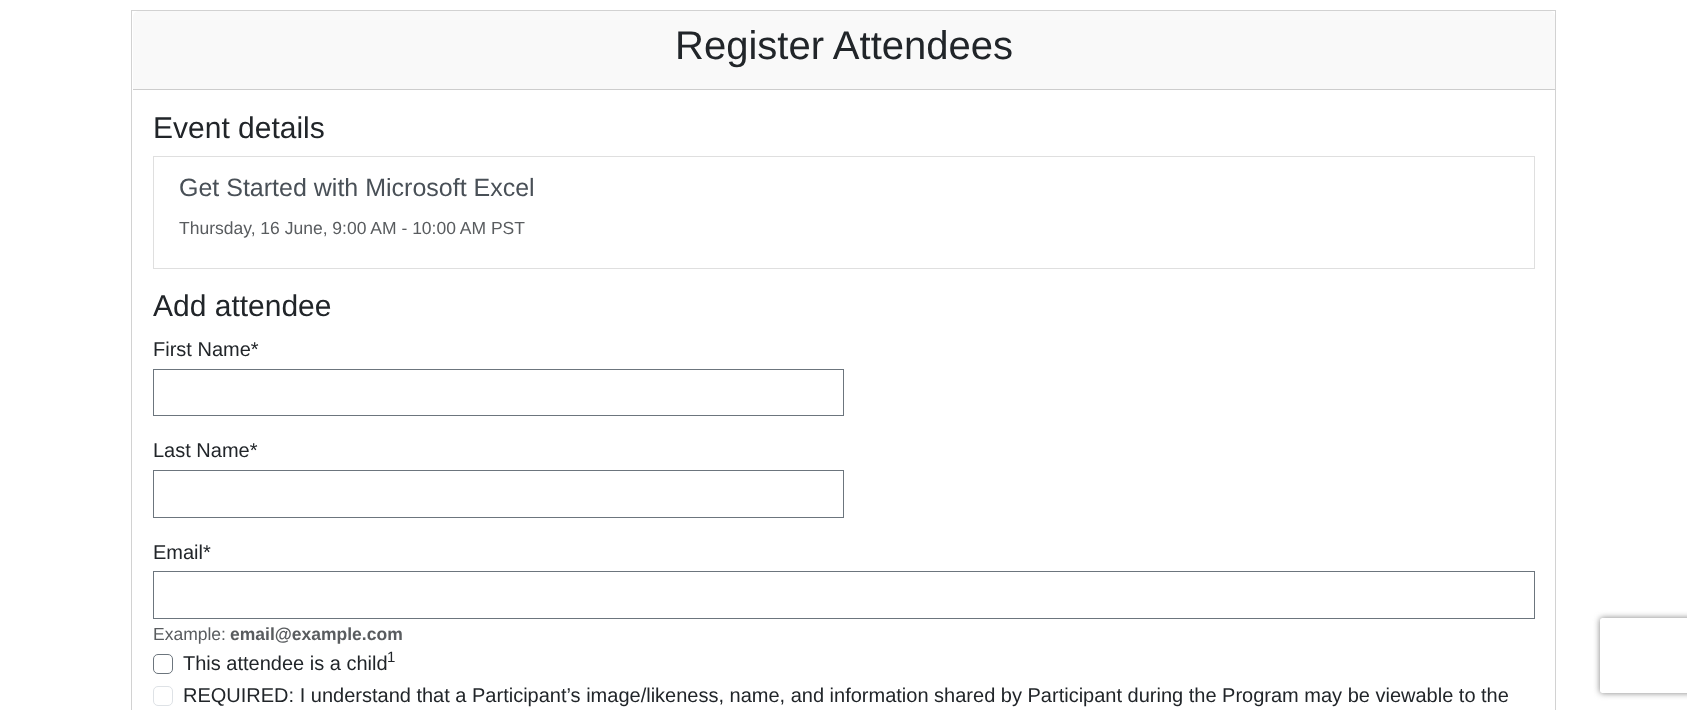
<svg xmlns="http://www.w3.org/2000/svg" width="1687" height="710">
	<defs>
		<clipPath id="clip1"><path d="M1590 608H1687V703H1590ZM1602.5 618H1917.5C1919 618 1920 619 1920 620.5V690.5C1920 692 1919 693 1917.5 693H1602.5C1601 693 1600 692 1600 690.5V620.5C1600 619 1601 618 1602.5 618Z" clip-rule="evenodd" /></clipPath>
	</defs>
	<rect width="100%" height="100%" fill="#FFFFFF" />
	<rect x="131.5" y="10.5" width="1424" height="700" fill="none" stroke="#D2D2D2" />
	<path d="M139 11H1549C1552.5 11 1555 13.5 1555 17V90H133V17C133 13.5 135.5 11 139 11Z" fill="#F9F9F9" />
	<rect x="133" y="89" width="1422" height="1" fill="#CDCDCD" />
	<text x="675" y="59" font-family="Liberation Sans" font-size="40" fill="#212529">Register Attendees</text>
	<text x="153" y="138" font-family="Liberation Sans" font-size="30" fill="#212529">Event details</text>
	<rect x="153.5" y="156.5" width="1381" height="112" fill="none" stroke="#DFDFDF" />
	<text x="179" y="196" font-family="Liberation Sans" font-size="25" fill="#495057">Get Started with Microsoft Excel</text>
	<text x="179" y="234" font-family="Liberation Sans" font-size="17.5" fill="#595C5F">Thursday, 16 June, 9:00 AM - 10:00 AM PST</text>
	<text x="153" y="316" font-family="Liberation Sans" font-size="30" fill="#212529">Add attendee</text>
	<text x="153" y="356" font-family="Liberation Sans" font-size="20" fill="#212529">First Name*</text>
	<rect x="153.5" y="369.5" width="690" height="46" fill="none" stroke="#6C757D" />
	<text x="153" y="457" font-family="Liberation Sans" font-size="20" fill="#212529">Last Name*</text>
	<rect x="153.5" y="470.5" width="690" height="47" fill="none" stroke="#6C757D" />
	<text x="153" y="559" font-family="Liberation Sans" font-size="20" fill="#212529">Email*</text>
	<rect x="153.5" y="571.5" width="1381" height="47" fill="none" stroke="#6C757D" />
	<text x="153" y="640" font-family="Liberation Sans" font-size="17.5" fill="#595C5F">Example:</text>
	<text x="230" y="640" font-family="Liberation Sans" font-size="17.5" font-weight="700" fill="#595C5F">email@example.com</text>
	<rect x="153.5" y="654.5" width="19" height="19" rx="4.5" fill="none" stroke="#6C757D" />
	<text x="183" y="670" font-family="Liberation Sans" font-size="20" fill="#212529">This attendee is a child</text>
	<text x="387" y="662" font-family="Liberation Sans" font-size="15" fill="#212529">1</text>
	<rect x="153.5" y="686.5" width="19" height="19" rx="4.5" fill="none" stroke="#DEE2E6" />
	<text x="183" y="702" font-family="Liberation Sans" font-size="20" fill="#212529">REQUIRED: I understand that a Participant’s image/likeness, name, and information shared by Participant during the Program may be viewable to the</text>
	<g clip-path="url(#clip1)">
		<rect x="1600" y="618" width="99" height="75" rx="2.5" fill="#808080" filter="blur(3px)" />
	</g>
</svg>
